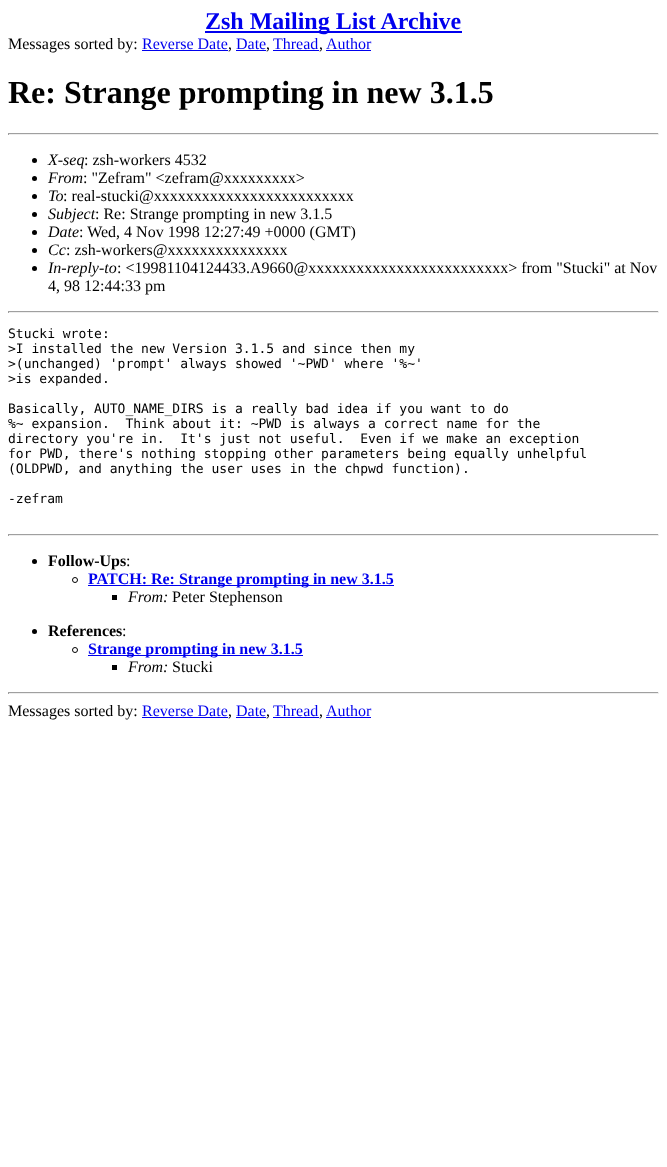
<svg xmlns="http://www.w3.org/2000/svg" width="667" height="1167">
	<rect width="100%" height="100%" fill="#FFFFFF" />
	<rect x="205" y="31" width="257" height="2" fill="#0000EE" />
	<text x="205" y="29" font-family="Liberation Serif" font-size="24" font-weight="700" fill="#0000EE">Zsh Mailing List Archive</text>
	<text x="8" y="49" font-family="Liberation Serif" font-size="16" fill="#000000">Messages sorted by:</text>
	<text x="142" y="49" font-family="Liberation Serif" font-size="16" fill="#0000EE">Reverse Date</text>
	<rect x="142" y="50" width="86" height="1" fill="#0000EE" />
	<text x="228" y="49" font-family="Liberation Serif" font-size="16" fill="#000000">,</text>
	<text x="236" y="49" font-family="Liberation Serif" font-size="16" fill="#0000EE">Date</text>
	<rect x="236" y="50" width="30" height="1" fill="#0000EE" />
	<text x="266" y="49" font-family="Liberation Serif" font-size="16" fill="#000000">,</text>
	<text x="273" y="49" font-family="Liberation Serif" font-size="16" fill="#0000EE">Thread</text>
	<rect x="273" y="50" width="46" height="1" fill="#0000EE" />
	<text x="319" y="49" font-family="Liberation Serif" font-size="16" fill="#000000">,</text>
	<text x="326" y="49" font-family="Liberation Serif" font-size="16" fill="#0000EE">Author</text>
	<rect x="326" y="50" width="45" height="1" fill="#0000EE" />
	<text x="8" y="103" font-family="Liberation Serif" font-size="32" font-weight="700" fill="#000000">Re: Strange prompting in new 3.1.5</text>
	<rect x="8" y="133" width="651" height="1" fill="#9F9F9F" />
	<rect x="658" y="133" width="1" height="2" fill="#EEEEEE" />
	<rect x="8" y="134" width="651" height="1" fill="#EEEEEE" />
	<rect x="8" y="133" width="1" height="2" fill="#9F9F9F" />
	<circle cx="34.5" cy="160.5" r="2.5" fill="#000000" />
	<text x="48" y="165" font-family="Liberation Serif" font-size="16" font-style="italic" fill="#000000">X-seq</text>
	<text x="84" y="165" font-family="Liberation Serif" font-size="16" fill="#000000">: zsh-workers 4532</text>
	<circle cx="34.5" cy="178.5" r="2.5" fill="#000000" />
	<text x="48" y="183" font-family="Liberation Serif" font-size="16" font-style="italic" fill="#000000">From</text>
	<text x="83" y="183" font-family="Liberation Serif" font-size="16" fill="#000000">: "Zefram" &lt;zefram@xxxxxxxxx&gt;</text>
	<circle cx="34.5" cy="196.5" r="2.5" fill="#000000" />
	<text x="48" y="201" font-family="Liberation Serif" font-size="16" font-style="italic" fill="#000000">To</text>
	<text x="63" y="201" font-family="Liberation Serif" font-size="16" fill="#000000">: real-stucki@xxxxxxxxxxxxxxxxxxxxxxxxx</text>
	<circle cx="34.5" cy="214.5" r="2.5" fill="#000000" />
	<text x="48" y="219" font-family="Liberation Serif" font-size="16" font-style="italic" fill="#000000">Subject</text>
	<text x="95" y="219" font-family="Liberation Serif" font-size="16" fill="#000000">: Re: Strange prompting in new 3.1.5</text>
	<circle cx="34.5" cy="232.5" r="2.5" fill="#000000" />
	<text x="48" y="237" font-family="Liberation Serif" font-size="16" font-style="italic" fill="#000000">Date</text>
	<text x="79" y="237" font-family="Liberation Serif" font-size="16" fill="#000000">: Wed, 4 Nov 1998 12:27:49 +0000 (GMT)</text>
	<circle cx="34.5" cy="250.5" r="2.5" fill="#000000" />
	<text x="48" y="255" font-family="Liberation Serif" font-size="16" font-style="italic" fill="#000000">Cc</text>
	<text x="66" y="255" font-family="Liberation Serif" font-size="16" fill="#000000">: zsh-workers@xxxxxxxxxxxxxxx</text>
	<circle cx="34.5" cy="268.5" r="2.5" fill="#000000" />
	<text x="48" y="273" font-family="Liberation Serif" font-size="16" font-style="italic" fill="#000000">In-reply-to</text>
	<g font-family="Liberation Serif" font-size="16" fill="#000000">
		<text x="117" y="273">: &lt;19981104124433.A9660@xxxxxxxxxxxxxxxxxxxxxxxxx&gt; from "Stucki" at Nov</text>
		<text x="48" y="291">4, 98 12:44:33 pm</text>
	</g>
	<rect x="8" y="311" width="651" height="1" fill="#9F9F9F" />
	<rect x="658" y="311" width="1" height="2" fill="#EEEEEE" />
	<rect x="8" y="312" width="651" height="1" fill="#EEEEEE" />
	<rect x="8" y="311" width="1" height="2" fill="#9F9F9F" />
	<g font-family="DejaVu Sans Mono" font-size="13" fill="#000000">
		<text x="8" y="338">Stucki wrote:</text>
		<text x="8" y="353">&gt;I installed the new Version 3.1.5 and since then my</text>
		<text x="8" y="368">&gt;(unchanged) 'prompt' always showed '~PWD' where '%~'</text>
		<text x="8" y="383">&gt;is expanded.</text>
		<text x="8" y="413">Basically, AUTO_NAME_DIRS is a really bad idea if you want to do</text>
		<text x="8" y="428" xml:space="preserve">%~ expansion.  Think about it: ~PWD is always a correct name for the</text>
		<text x="8" y="443" xml:space="preserve">directory you're in.  It's just not useful.  Even if we make an exception</text>
		<text x="8" y="458">for PWD, there's nothing stopping other parameters being equally unhelpful</text>
		<text x="8" y="473">(OLDPWD, and anything the user uses in the chpwd function).</text>
		<text x="8" y="503">-zefram</text>
	</g>
	<rect x="8" y="534" width="651" height="1" fill="#9F9F9F" />
	<rect x="658" y="534" width="1" height="2" fill="#EEEEEE" />
	<rect x="8" y="535" width="651" height="1" fill="#EEEEEE" />
	<rect x="8" y="534" width="1" height="2" fill="#9F9F9F" />
	<circle cx="34.5" cy="561.5" r="2.5" fill="#000000" />
	<text x="48" y="566" font-family="Liberation Serif" font-size="16" font-weight="700" fill="#000000">Follow-Ups</text>
	<text x="126" y="566" font-family="Liberation Serif" font-size="16" fill="#000000">:</text>
	<circle cx="75" cy="580" r="2.5" fill="none" stroke="#000000" />
	<rect x="88" y="585" width="306" height="1" fill="#0000EE" />
	<text x="88" y="584" font-family="Liberation Serif" font-size="16" font-weight="700" fill="#0000EE">PATCH: Re: Strange prompting in new 3.1.5</text>
	<rect x="112" y="595" width="5" height="5" fill="#000000" />
	<text x="128" y="602" font-family="Liberation Serif" font-size="16" font-style="italic" fill="#000000">From:</text>
	<text x="172" y="602" font-family="Liberation Serif" font-size="16" fill="#000000">Peter Stephenson</text>
	<circle cx="34.5" cy="631.5" r="2.5" fill="#000000" />
	<text x="48" y="636" font-family="Liberation Serif" font-size="16" font-weight="700" fill="#000000">References</text>
	<text x="122" y="636" font-family="Liberation Serif" font-size="16" fill="#000000">:</text>
	<circle cx="75" cy="650" r="2.5" fill="none" stroke="#000000" />
	<rect x="88" y="655" width="215" height="1" fill="#0000EE" />
	<text x="88" y="654" font-family="Liberation Serif" font-size="16" font-weight="700" fill="#0000EE">Strange prompting in new 3.1.5</text>
	<rect x="112" y="665" width="5" height="5" fill="#000000" />
	<text x="128" y="672" font-family="Liberation Serif" font-size="16" font-style="italic" fill="#000000">From:</text>
	<text x="172" y="672" font-family="Liberation Serif" font-size="16" fill="#000000">Stucki</text>
	<rect x="8" y="692" width="651" height="1" fill="#9F9F9F" />
	<rect x="658" y="692" width="1" height="2" fill="#EEEEEE" />
	<rect x="8" y="693" width="651" height="1" fill="#EEEEEE" />
	<rect x="8" y="692" width="1" height="2" fill="#9F9F9F" />
	<text x="8" y="716" font-family="Liberation Serif" font-size="16" fill="#000000">Messages sorted by:</text>
	<text x="142" y="716" font-family="Liberation Serif" font-size="16" fill="#0000EE">Reverse Date</text>
	<rect x="142" y="717" width="86" height="1" fill="#0000EE" />
	<text x="228" y="716" font-family="Liberation Serif" font-size="16" fill="#000000">,</text>
	<text x="236" y="716" font-family="Liberation Serif" font-size="16" fill="#0000EE">Date</text>
	<rect x="236" y="717" width="30" height="1" fill="#0000EE" />
	<text x="266" y="716" font-family="Liberation Serif" font-size="16" fill="#000000">,</text>
	<text x="273" y="716" font-family="Liberation Serif" font-size="16" fill="#0000EE">Thread</text>
	<rect x="273" y="717" width="46" height="1" fill="#0000EE" />
	<text x="319" y="716" font-family="Liberation Serif" font-size="16" fill="#000000">,</text>
	<text x="326" y="716" font-family="Liberation Serif" font-size="16" fill="#0000EE">Author</text>
	<rect x="326" y="717" width="45" height="1" fill="#0000EE" />
</svg>
